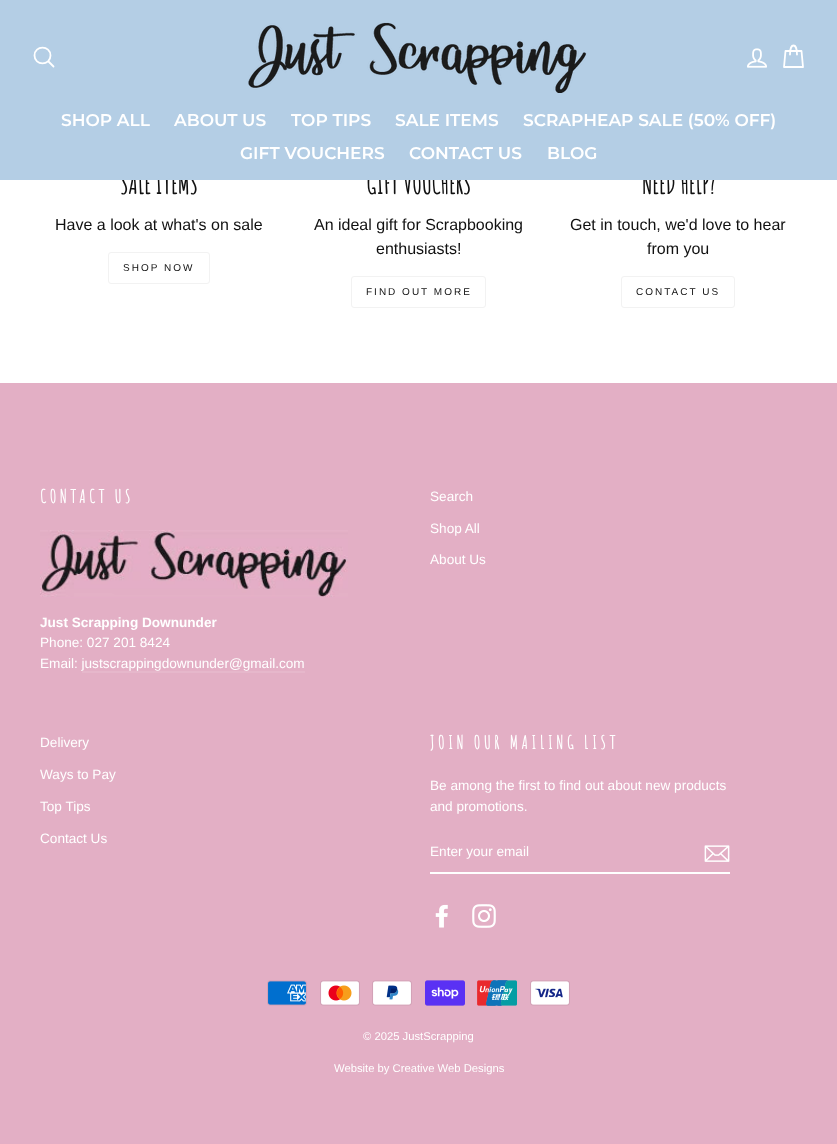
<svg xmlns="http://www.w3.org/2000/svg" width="837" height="1144">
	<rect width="100%" height="100%" fill="#FFFFFF" />
	<g font-family="Amatic SC" font-size="26.5" font-weight="700" fill="#111111">
		<text x="120" y="194">SALE ITEMS</text>
		<text x="366" y="194">GIFT VOUCHERS</text>
		<text x="642" y="194">NEED HELP?</text>
	</g>
	<rect x="0" y="0" width="837" height="180" fill="#B4CEE5" />
	<path d="M50.5 55.5C50.5 66 34.5 66 34.5 55.5C34.5 45 50.5 45 50.5 55.5ZM53.5 66.5L48.5 61.5" fill="none" stroke="#FFFFFF" stroke-width="1.8" stroke-linecap="round" stroke-linejoin="round" />
	<image x="248" y="22" width="339" height="71" href="assets/img1.png" />
	<image x="747" y="48" width="20" height="20" href="assets/img2.png" />
	<path d="M790 54.5C790 42.5 797 42.5 797 54.5M785.5 51H801.5L803 67H784Z" fill="none" stroke="#FFFFFF" stroke-width="1.8" stroke-linecap="round" stroke-linejoin="round" />
	<g font-family="Montserrat" font-size="17" font-weight="600" fill="#FFFFFF">
		<text x="61" y="126">SHOP ALL</text>
		<text x="174" y="126">ABOUT US</text>
		<text x="291" y="126">TOP TIPS</text>
		<text x="395" y="126">SALE ITEMS</text>
		<text x="523" y="126">SCRAPHEAP SALE (50% OFF)</text>
		<text x="240" y="159">GIFT VOUCHERS</text>
		<text x="409" y="159">CONTACT US</text>
		<text x="547" y="159">BLOG</text>
	</g>
	<text x="55" y="230" font-family="Arimo" font-size="16" fill="#111111">Have a look at what's on sale</text>
	<rect x="108.5" y="252.5" width="101" height="31" rx="2.5" fill="none" stroke="#F2F2F2" />
	<text x="123" y="271" font-family="Arimo" font-size="10" letter-spacing="2" fill="#111111">SHOP NOW</text>
	<g font-family="Arimo" font-size="16" fill="#111111">
		<text x="314" y="230">An ideal gift for Scrapbooking</text>
		<text x="376" y="254">enthusiasts!</text>
	</g>
	<rect x="351.5" y="276.5" width="134" height="31" rx="2.5" fill="none" stroke="#F2F2F2" />
	<text x="366" y="295" font-family="Arimo" font-size="10" letter-spacing="2" fill="#111111">FIND OUT MORE</text>
	<g font-family="Arimo" font-size="16" fill="#111111">
		<text x="570" y="230">Get in touch, we'd love to hear</text>
		<text x="647" y="254">from you</text>
	</g>
	<rect x="621.5" y="276.5" width="113" height="31" rx="2.5" fill="none" stroke="#F2F2F2" />
	<text x="636" y="295" font-family="Arimo" font-size="10" letter-spacing="2" fill="#111111">CONTACT US</text>
	<rect x="0" y="383" width="837" height="761" fill="#E3AFC5" />
	<text x="40" y="503" font-family="Amatic SC" font-size="18" font-weight="700" letter-spacing="3.6" fill="#FFFFFF">CONTACT US</text>
	<image x="40" y="530" width="308" height="68" href="assets/img3.png" />
	<text x="40" y="627" font-family="Arimo" font-size="13.6" font-weight="700" fill="#FFFFFF">Just Scrapping Downunder</text>
	<g font-family="Arimo" font-size="13.6" fill="#FFFFFF">
		<text x="40" y="647">Phone: 027 201 8424</text>
		<text x="40" y="668">Email: justscrappingdownunder@gmail.com</text>
	</g>
	<rect x="82" y="671" width="223" height="2" fill="#E6B7CB" />
	<g font-family="Arimo" font-size="13.6" fill="#FFFFFF">
		<text x="430" y="501">Search</text>
		<text x="430" y="533">Shop All</text>
		<text x="430" y="564">About Us</text>
		<text x="40" y="747">Delivery</text>
		<text x="40" y="779">Ways to Pay</text>
		<text x="40" y="811">Top Tips</text>
		<text x="40" y="843">Contact Us</text>
	</g>
	<text x="430" y="749" font-family="Amatic SC" font-size="18" font-weight="700" letter-spacing="3.6" fill="#FFFFFF">JOIN OUR MAILING LIST</text>
	<g font-family="Arimo" font-size="13.6" fill="#FFFFFF">
		<text x="430" y="790">Be among the first to find out about new products</text>
		<text x="430" y="811">and promotions.</text>
	</g>
	<rect x="430" y="872" width="300" height="2" fill="#FFFFFF" />
	<text x="430" y="856" font-family="Arimo" font-size="13.6" fill="#FFFFFF">Enter your email</text>
	<image x="704" y="845" width="26" height="17" href="assets/img4.png" />
	<image x="435" y="904" width="13" height="24" href="assets/img5.png" />
	<image x="472" y="904" width="24" height="24" href="assets/img6.png" />
	<image x="267" y="980" width="40" height="26" href="assets/img7.png" />
	<image x="320" y="980" width="40" height="26" href="assets/img8.png" />
	<image x="372" y="980" width="40" height="26" href="assets/img9.png" />
	<image x="425" y="980" width="40" height="26" href="assets/img10.png" />
	<image x="477" y="980" width="40" height="26" href="assets/img11.png" />
	<image x="530" y="980" width="40" height="26" href="assets/img12.png" />
	<g font-family="Arimo" font-size="11.25" fill="#FFFFFF">
		<text x="363" y="1040">© 2025 JustScrapping</text>
		<text x="334" y="1072">Website by Creative Web Designs</text>
	</g>
</svg>
